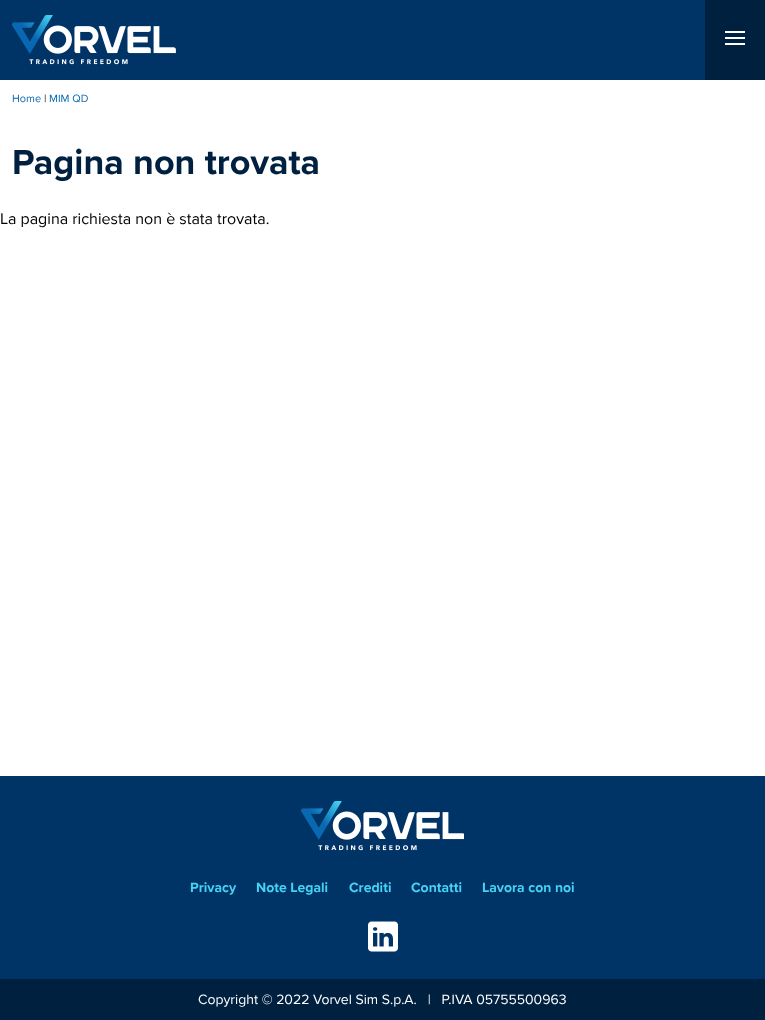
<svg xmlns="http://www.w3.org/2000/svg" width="765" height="1020">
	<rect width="100%" height="100%" fill="#FFFFFF" />
	<rect x="0" y="0" width="705" height="80" fill="#003366" />
	<image x="12" y="15" width="164" height="50" href="assets/img1.png" />
	<rect x="705" y="0" width="60" height="80" fill="#002040" />
	<rect x="725" y="37" width="20" height="2" fill="#FFFFFF" />
	<rect x="725" y="31" width="20" height="2" fill="#FFFFFF" />
	<rect x="725" y="43" width="20" height="2" fill="#FFFFFF" />
	<text x="12" y="102" font-family="Proxima Nova" font-size="11" fill="#0869B2">Home</text>
	<text x="44" y="102" font-family="Proxima Nova" font-size="11" fill="#000000">|</text>
	<text x="49" y="102" font-family="Proxima Nova" font-size="11" fill="#0869B2">MIM QD</text>
	<text x="12" y="174" font-family="Proxima Nova" font-size="36" font-weight="700" fill="#002040">Pagina non trovata</text>
	<text x="0" y="224" font-family="Proxima Nova" font-size="16" fill="#000000">La pagina richiesta non è stata trovata.</text>
	<rect x="0" y="776" width="765" height="203" fill="#003366" />
	<image x="301" y="801" width="163" height="50" href="assets/img2.png" />
	<g font-family="Proxima Nova" font-size="14" font-weight="700" fill="#45D3F4">
		<text x="190" y="892">Privacy</text>
		<text x="256" y="892">Note Legali</text>
		<text x="349" y="892">Crediti</text>
		<text x="411" y="892">Contatti</text>
		<text x="482" y="892">Lavora con noi</text>
	</g>
	<image x="368" y="921" width="30" height="31" href="assets/img3.png" />
	<rect x="0" y="979" width="765" height="41" fill="#002040" />
	<text x="198" y="1004" font-family="Proxima Nova" font-size="14" fill="#FFFFFF" xml:space="preserve">Copyright © 2022 Vorvel Sim S.p.A.   |   P.IVA 05755500963</text>
</svg>
